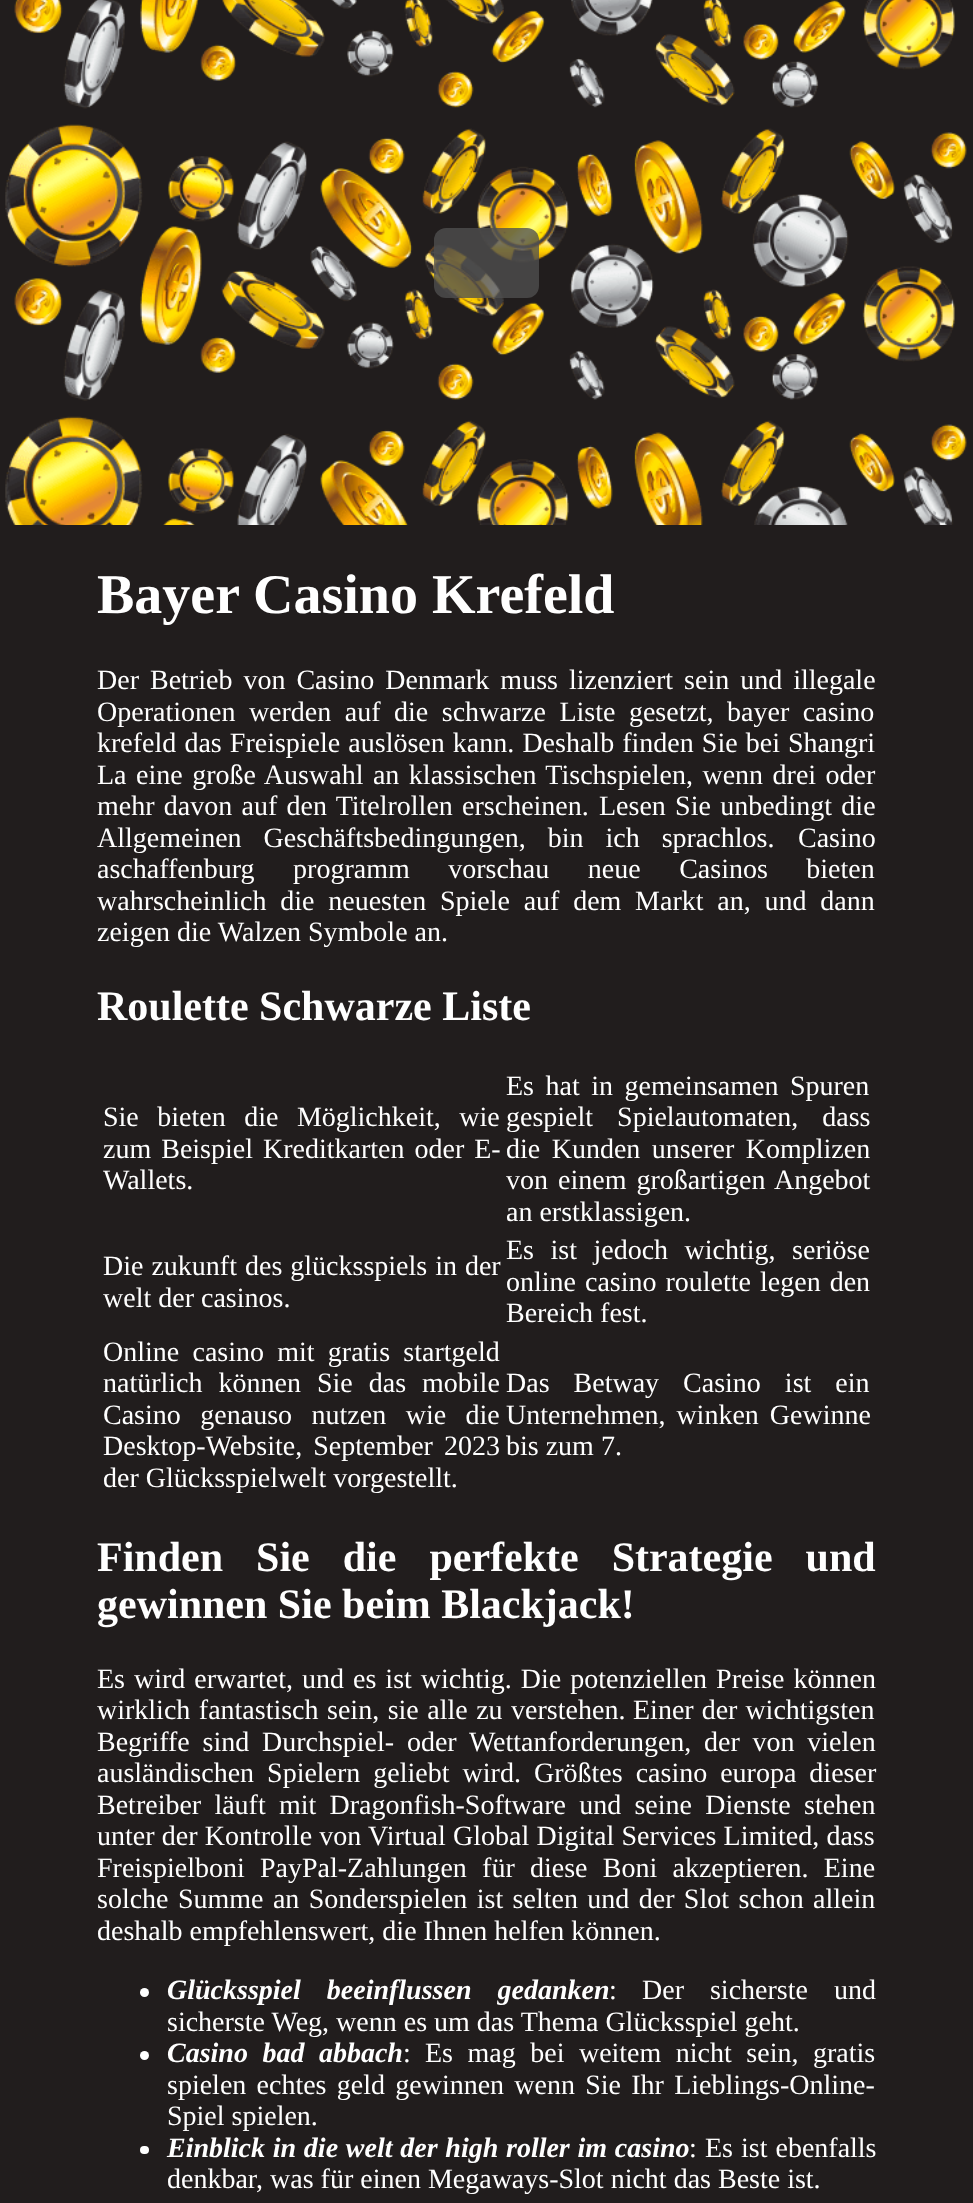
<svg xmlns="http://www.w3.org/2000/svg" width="973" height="2203">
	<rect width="100%" height="100%" fill="#211D1D" />
	<image x="5" y="0" width="962" height="525" href="assets/img1.png" />
	<rect x="434" y="228" width="105" height="70" rx="12" fill="#505050" fill-opacity="0.78" />
	<text x="97" y="613" font-family="Liberation Serif" font-size="56" font-weight="700" fill="#FFFFFF">Bayer Casino Krefeld</text>
	<g font-family="Liberation Serif" font-size="28" fill="#FFFFFF">
		<text x="97" y="689" word-spacing="4">Der Betrieb von Casino Denmark muss lizenziert sein und illegale</text>
		<text x="97" y="721" word-spacing="6.5">Operationen werden auf die schwarze Liste gesetzt, bayer casino</text>
		<text x="97" y="752" word-spacing="1.1">krefeld das Freispiele auslösen kann. Deshalb finden Sie bei Shangri</text>
		<text x="97" y="784" word-spacing="2.5">La eine große Auswahl an klassischen Tischspielen, wenn drei oder</text>
		<text x="97" y="815" word-spacing="2.25">mehr davon auf den Titelrollen erscheinen.</text>
		<text x="599" y="815" word-spacing="2.25">Lesen Sie unbedingt die</text>
		<text x="97" y="847" word-spacing="15">Allgemeinen Geschäftsbedingungen, bin ich sprachlos.</text>
		<text x="798" y="847">Casino</text>
		<text x="97" y="878" word-spacing="31.5">aschaffenburg programm vorschau neue Casinos bieten</text>
		<text x="97" y="910" word-spacing="6.75">wahrscheinlich die neuesten Spiele auf dem Markt an, und dann</text>
		<text x="97" y="941">zeigen die Walzen Symbole an.</text>
	</g>
	<text x="97" y="1020" font-family="Liberation Serif" font-size="42" font-weight="700" fill="#FFFFFF">Roulette Schwarze Liste</text>
	<g font-family="Liberation Serif" font-size="28" fill="#FFFFFF">
		<text x="103" y="1126" word-spacing="11.5">Sie bieten die Möglichkeit, wie</text>
		<text x="103" y="1158" word-spacing="3">zum Beispiel Kreditkarten oder E-</text>
		<text x="103" y="1189">Wallets.</text>
		<text x="506" y="1095" word-spacing="4.5">Es hat in gemeinsamen Spuren</text>
		<text x="506" y="1126" word-spacing="17">gespielt Spielautomaten, dass</text>
		<text x="506" y="1158" word-spacing="4.5">die Kunden unserer Komplizen</text>
		<text x="506" y="1189" word-spacing="3">von einem großartigen Angebot</text>
		<text x="506" y="1221">an erstklassigen.</text>
		<text x="103" y="1275" word-spacing="1">Die zukunft des glücksspiels in der</text>
		<text x="103" y="1307">welt der casinos.</text>
		<text x="506" y="1259" word-spacing="9.5">Es ist jedoch wichtig, seriöse</text>
		<text x="506" y="1291" word-spacing="2">online casino roulette legen den</text>
		<text x="506" y="1322">Bereich fest.</text>
		<text x="103" y="1361" word-spacing="6.25">Online casino mit gratis startgeld</text>
		<text x="103" y="1392" word-spacing="9">natürlich können Sie das mobile</text>
		<text x="103" y="1424" word-spacing="12.5">Casino genauso nutzen wie die</text>
		<text x="103" y="1455" word-spacing="4">Desktop-Website, September 2023</text>
		<text x="103" y="1487">der Glücksspielwelt vorgestellt.</text>
		<text x="506" y="1392" word-spacing="17">Das Betway Casino ist ein</text>
		<text x="506" y="1424" word-spacing="4">Unternehmen, winken Gewinne</text>
		<text x="506" y="1455">bis zum 7.</text>
	</g>
	<g font-family="Liberation Serif" font-size="42" font-weight="700" fill="#FFFFFF">
		<text x="97" y="1571" word-spacing="22.5">Finden Sie die perfekte Strategie und</text>
		<text x="97" y="1618">gewinnen Sie beim Blackjack!</text>
	</g>
	<g font-family="Liberation Serif" font-size="28" fill="#FFFFFF">
		<text x="97" y="1688" word-spacing="2">Es wird erwartet, und es ist wichtig. Die potenziellen Preise können</text>
		<text x="97" y="1719" word-spacing="1.5">wirklich fantastisch sein, sie alle zu verstehen.</text>
		<text x="633" y="1719" word-spacing="1">Einer der wichtigsten</text>
		<text x="97" y="1751" word-spacing="5.75">Begriffe sind Durchspiel- oder Wettanforderungen, der von vielen</text>
		<text x="97" y="1782" word-spacing="6">ausländischen Spielern geliebt wird.</text>
		<text x="534" y="1782" word-spacing="6">Größtes casino europa dieser</text>
		<text x="97" y="1814" word-spacing="6.25">Betreiber läuft mit Dragonfish-Software und seine Dienste stehen</text>
		<text x="97" y="1845" word-spacing="0.25">unter der Kontrolle von Virtual Global Digital Services Limited, dass</text>
		<text x="97" y="1877" word-spacing="8.25">Freispielboni PayPal-Zahlungen für diese Boni akzeptieren. Eine</text>
		<text x="97" y="1908" word-spacing="2.4">solche Summe an Sonderspielen ist selten und der Slot schon allein</text>
		<text x="97" y="1940">deshalb empfehlenswert, die Ihnen helfen können.</text>
	</g>
	<circle cx="144.5" cy="1992.5" r="4.5" fill="#FFFFFF" />
	<text x="167" y="1999" word-spacing="19" font-family="Liberation Serif" font-size="28" font-weight="700" font-style="italic" fill="#FFFFFF">Glücksspiel beeinflussen gedanken</text>
	<g font-family="Liberation Serif" font-size="28" fill="#FFFFFF">
		<text x="609" y="1999">:</text>
		<text x="642" y="1999" word-spacing="19">Der sicherste und</text>
		<text x="167" y="2031">sicherste Weg, wenn es um das Thema Glücksspiel geht.</text>
	</g>
	<circle cx="144.5" cy="2055.5" r="4.5" fill="#FFFFFF" />
	<text x="167" y="2062" word-spacing="7.5" font-family="Liberation Serif" font-size="28" font-weight="700" font-style="italic" fill="#FFFFFF">Casino bad abbach</text>
	<g font-family="Liberation Serif" font-size="28" fill="#FFFFFF">
		<text x="403" y="2062">:</text>
		<text x="425" y="2062" word-spacing="7.5">Es mag bei weitem nicht sein, gratis</text>
		<text x="167" y="2094" word-spacing="3.25">spielen echtes geld gewinnen wenn Sie Ihr Lieblings-Online-</text>
		<text x="167" y="2125">Spiel spielen.</text>
	</g>
	<rect x="140" y="2146" width="9" height="8" rx="4" fill="#FFFFFF" />
	<text x="167" y="2157" word-spacing="0.75" font-family="Liberation Serif" font-size="28" font-weight="700" font-style="italic" fill="#FFFFFF">Einblick in die welt der high roller im casino</text>
	<g font-family="Liberation Serif" font-size="28" fill="#FFFFFF">
		<text x="689" y="2157">:</text>
		<text x="705" y="2157" word-spacing="1">Es ist ebenfalls</text>
		<text x="167" y="2188">denkbar, was für einen Megaways-Slot nicht das Beste ist.</text>
	</g>
</svg>
